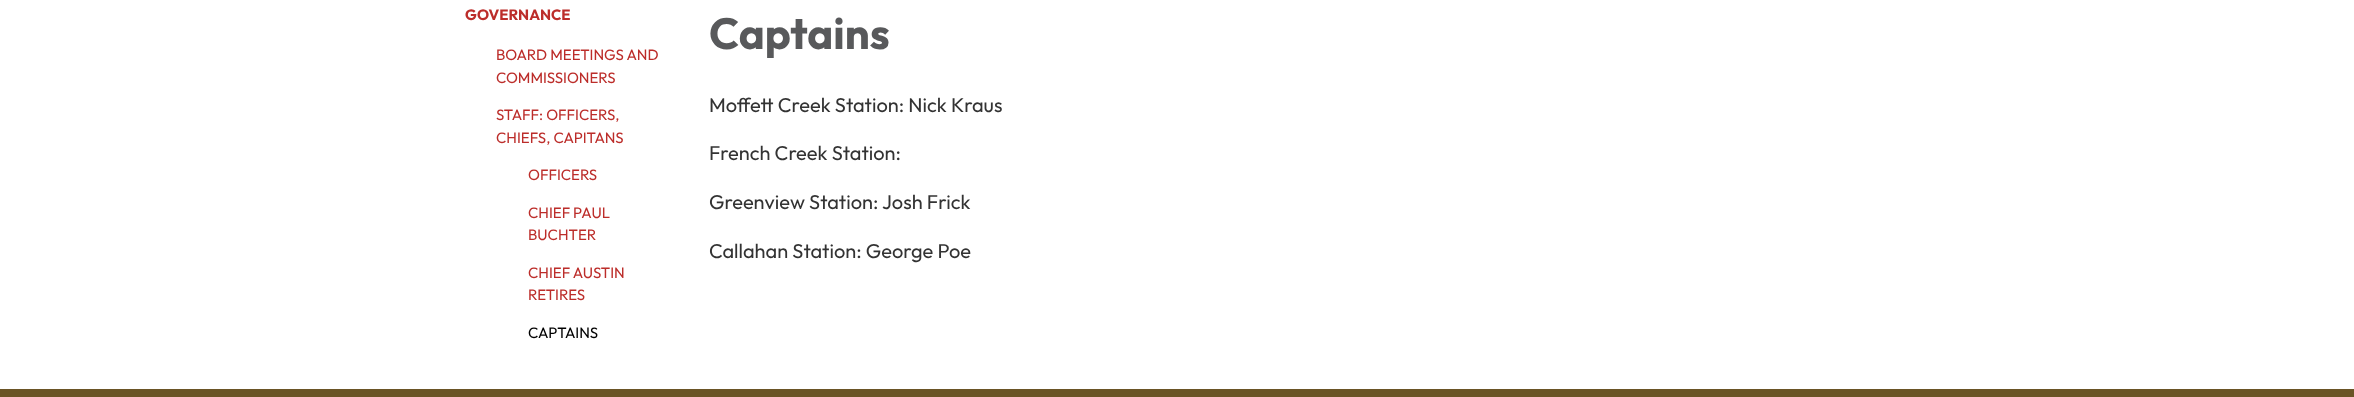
<svg xmlns="http://www.w3.org/2000/svg" width="2354" height="397">
	<rect width="100%" height="100%" fill="#6A5425" />
	<rect x="0" y="0" width="2354" height="389" fill="#FFFFFF" />
	<text x="465" y="20" font-family="Outfit" font-size="15" font-weight="700" fill="#BC2D2A">GOVERNANCE</text>
	<g font-family="Outfit" font-size="15" fill="#BC2D2A">
		<text x="496" y="60">BOARD MEETINGS AND</text>
		<text x="496" y="83">COMMISSIONERS</text>
		<text x="496" y="120">STAFF: OFFICERS,</text>
		<text x="496" y="143">CHIEFS, CAPITANS</text>
		<text x="528" y="180">OFFICERS</text>
		<text x="528" y="218">CHIEF PAUL</text>
		<text x="528" y="240">BUCHTER</text>
		<text x="528" y="278">CHIEF AUSTIN</text>
		<text x="528" y="300">RETIRES</text>
	</g>
	<text x="528" y="338" font-family="Outfit" font-size="15" fill="#000000">CAPTAINS</text>
	<text x="709" y="49" font-family="Outfit" font-size="43.75" font-weight="700" fill="#58595B">Captains</text>
	<g font-family="Outfit" font-size="20" fill="#333333">
		<text x="709" y="112">Moffett Creek Station: Nick Kraus</text>
		<text x="709" y="160">French Creek Station:</text>
		<text x="709" y="209">Greenview Station: Josh Frick</text>
		<text x="709" y="258">Callahan Station: George Poe</text>
	</g>
</svg>
